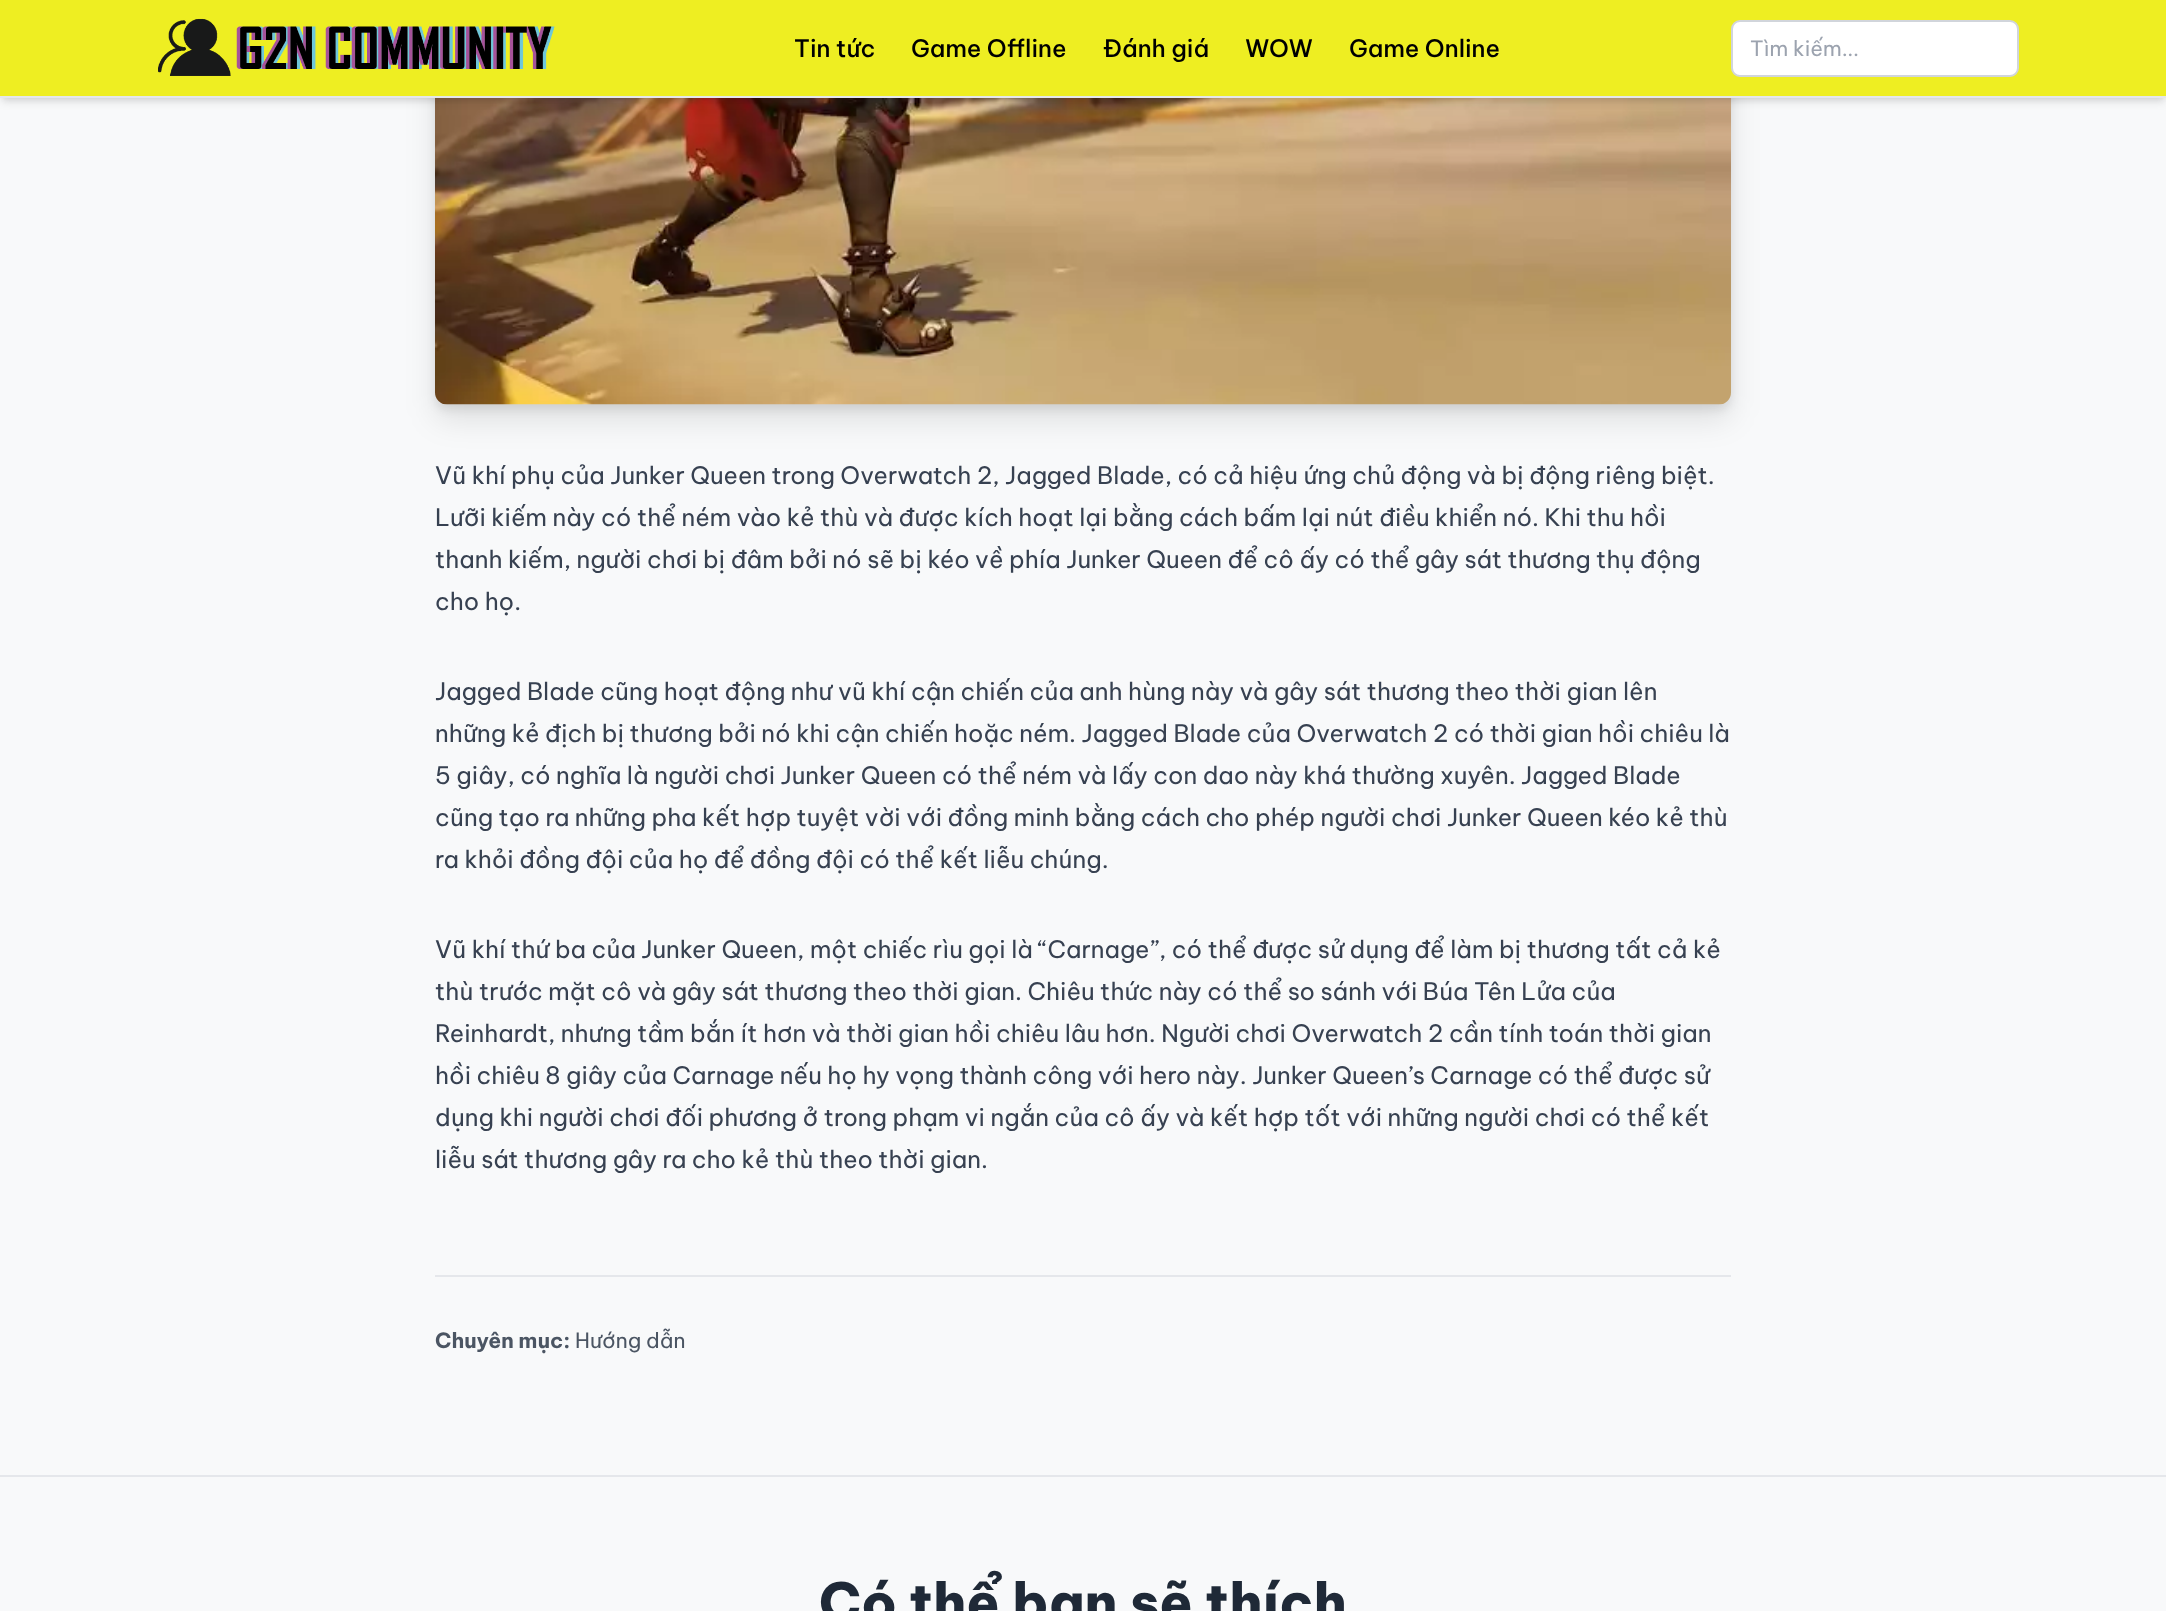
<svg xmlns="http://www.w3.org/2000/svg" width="2166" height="1611">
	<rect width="100%" height="100%" fill="#F8F9FA" />
	<rect x="435" y="-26" width="1296" height="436" rx="12" fill="#000000" fill-opacity="0.08" filter="blur(4.5px)" />
	<rect x="435" y="-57" width="1296" height="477" rx="12" fill="#000000" fill-opacity="0.1" filter="blur(15px)" />
	<image x="435" y="98" width="1296" height="307" href="assets/img2.png" />
	<rect x="3" y="6" width="2160" height="92" fill="#000000" fill-opacity="0.1" filter="blur(3px)" />
	<rect x="2" y="8" width="2163" height="94" fill="#000000" fill-opacity="0.1" filter="blur(4.5px)" />
	<rect x="0" y="0" width="2166" height="96" fill="#EEEE22" />
	<rect x="0" y="96" width="2166" height="2" fill="#E5E7EB" />
	<image x="158" y="18" width="397" height="58" href="assets/img1.png" />
	<g font-family="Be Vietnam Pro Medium" font-size="24" font-weight="500" fill="#000000">
		<text x="794" y="57">Tin tức</text>
		<text x="911" y="57">Game Offline</text>
		<text x="1103" y="57">Đánh giá</text>
		<text x="1245" y="57">WOW</text>
		<text x="1349" y="57">Game Online</text>
	</g>
	<rect x="1732" y="21" width="286" height="55" rx="8" fill="#FFFFFF" stroke="#D1D5DB" stroke-width="2" />
	<text x="1750" y="56" font-family="Be Vietnam Pro" font-size="21" fill="#9CA3AF">Tìm kiếm...</text>
	<g font-family="Be Vietnam Pro" font-size="24" fill="#374151">
		<text x="435" y="484">Vũ khí phụ của Junker Queen trong Overwatch 2, Jagged Blade, có cả hiệu ứng chủ động và bị động riêng biệt.</text>
		<text x="435" y="526">Lưỡi kiếm này có thể ném vào kẻ thù và được kích hoạt lại bằng cách bấm lại nút điều khiển nó. Khi thu hồi</text>
		<text x="435" y="568">thanh kiếm, người chơi bị đâm bởi nó sẽ bị kéo về phía Junker Queen để cô ấy có thể gây sát thương thụ động</text>
		<text x="435" y="610">cho họ.</text>
		<text x="435" y="700">Jagged Blade cũng hoạt động như vũ khí cận chiến của anh hùng này và gây sát thương theo thời gian lên</text>
		<text x="435" y="742">những kẻ địch bị thương bởi nó khi cận chiến hoặc ném. Jagged Blade của Overwatch 2 có thời gian hồi chiêu là</text>
		<text x="435" y="784">5 giây, có nghĩa là người chơi Junker Queen có thể ném và lấy con dao này khá thường xuyên. Jagged Blade</text>
		<text x="435" y="826">cũng tạo ra những pha kết hợp tuyệt vời với đồng minh bằng cách cho phép người chơi Junker Queen kéo kẻ thù</text>
		<text x="435" y="868">ra khỏi đồng đội của họ để đồng đội có thể kết liễu chúng.</text>
		<text x="435" y="958">Vũ khí thứ ba của Junker Queen, một chiếc rìu gọi là “Carnage”, có thể được sử dụng để làm bị thương tất cả kẻ</text>
		<text x="435" y="1000">thù trước mặt cô và gây sát thương theo thời gian. Chiêu thức này có thể so sánh với Búa Tên Lửa của</text>
		<text x="435" y="1042">Reinhardt, nhưng tầm bắn ít hơn và thời gian hồi chiêu lâu hơn. Người chơi Overwatch 2 cần tính toán thời gian</text>
		<text x="435" y="1084">hồi chiêu 8 giây của Carnage nếu họ hy vọng thành công với hero này. Junker Queen’s Carnage có thể được sử</text>
		<text x="435" y="1126">dụng khi người chơi đối phương ở trong phạm vi ngắn của cô ấy và kết hợp tốt với những người chơi có thể kết</text>
		<text x="435" y="1168">liễu sát thương gây ra cho kẻ thù theo thời gian.</text>
	</g>
	<rect x="435" y="1275" width="1296" height="2" fill="#E5E7EB" />
	<text x="435" y="1348" font-family="Be Vietnam Pro" font-size="21" font-weight="700" fill="#4B5563">Chuyên mục:</text>
	<text x="575" y="1348" font-family="Be Vietnam Pro" font-size="21" fill="#4B5563">Hướng dẫn</text>
	<rect x="0" y="1475" width="2166" height="2" fill="#E5E7EB" />
	<text x="819" y="1622" font-family="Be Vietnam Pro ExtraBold" font-size="54" font-weight="800" fill="#1F2937">Có thể bạn sẽ thích</text>
</svg>
